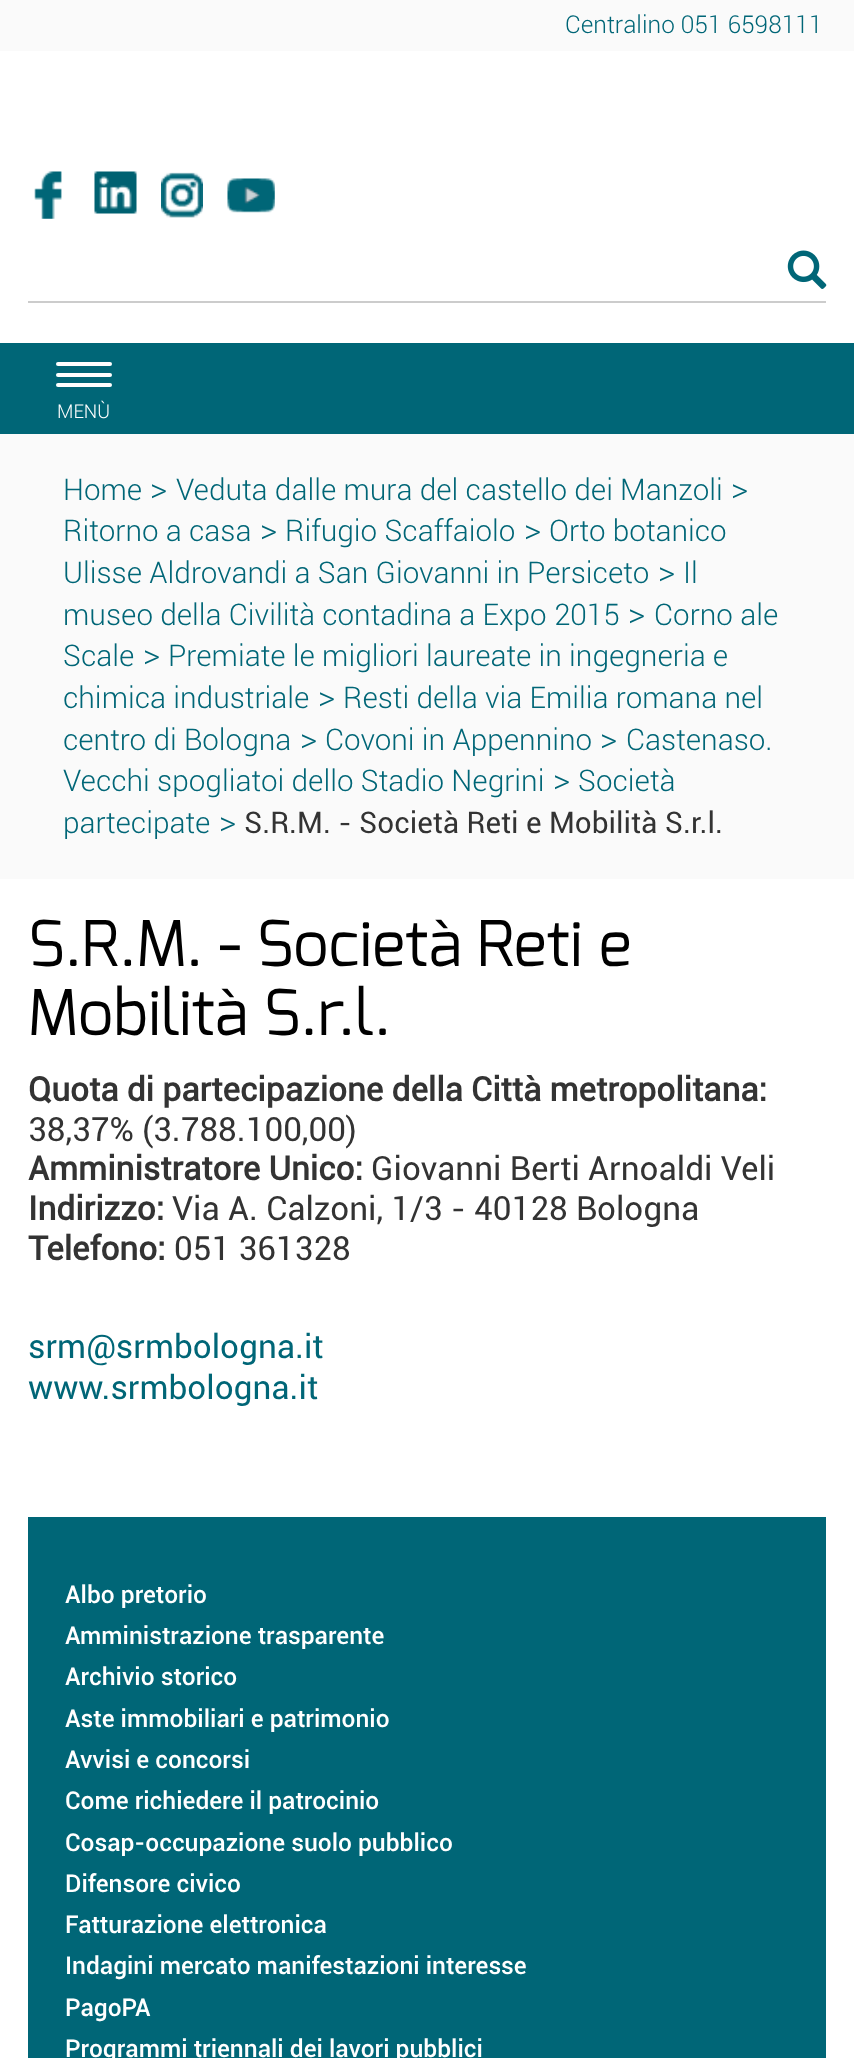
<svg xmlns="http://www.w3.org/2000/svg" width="854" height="2058">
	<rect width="100%" height="100%" fill="#FFFFFF" />
	<rect x="0" y="0" width="854" height="51" fill="#FAFAFA" />
	<text x="565" y="33" font-family="Roboto" font-size="24.5" font-weight="300" fill="#006677">Centralino 051 6598111</text>
	<image x="34" y="171" width="28" height="48" href="assets/img1.png" />
	<image x="94" y="171" width="43" height="43" href="assets/img2.png" />
	<image x="161" y="172" width="42" height="46" href="assets/img3.png" />
	<image x="227" y="178" width="48" height="35" href="assets/img4.png" />
	<image x="787" y="250" width="40" height="39" href="assets/img5.png" />
	<rect x="28" y="301" width="798" height="2" fill="#CCCCCC" />
	<rect x="0" y="343" width="854" height="91" fill="#006677" />
	<rect x="56" y="362" width="56" height="4" rx="2" fill="#FFFFFF" />
	<rect x="56" y="373" width="56" height="4" rx="2" fill="#FFFFFF" />
	<rect x="56" y="383" width="56" height="4" rx="2" fill="#FFFFFF" />
	<text x="57" y="418" font-family="Roboto" font-size="19" font-weight="300" fill="#FFFFFF">MENÙ</text>
	<rect x="0" y="434" width="854" height="445" fill="#FAFAFA" />
	<text x="63" y="500" font-family="Roboto" font-size="29.75" font-weight="300" fill="#006677">Home</text>
	<text x="150" y="500" font-family="Roboto" font-size="33.25" font-weight="300" fill="#006677">&gt;</text>
	<text x="176" y="500" font-family="Roboto" font-size="29.75" font-weight="300" fill="#006677">Veduta dalle mura del castello dei Manzoli</text>
	<text x="731" y="500" font-family="Roboto" font-size="33.25" font-weight="300" fill="#006677">&gt;</text>
	<text x="63" y="541" font-family="Roboto" font-size="29.75" font-weight="300" fill="#006677">Ritorno a casa</text>
	<text x="260" y="541" font-family="Roboto" font-size="33.25" font-weight="300" fill="#006677">&gt;</text>
	<text x="285" y="541" font-family="Roboto" font-size="29.75" font-weight="300" fill="#006677">Rifugio Scaffaiolo</text>
	<text x="524" y="541" font-family="Roboto" font-size="33.25" font-weight="300" fill="#006677">&gt;</text>
	<g font-family="Roboto" font-size="29.75" font-weight="300" fill="#006677">
		<text x="549" y="541">Orto botanico</text>
		<text x="63" y="583">Ulisse Aldrovandi a San Giovanni in Persiceto</text>
	</g>
	<text x="658" y="583" font-family="Roboto" font-size="33.25" font-weight="300" fill="#006677">&gt;</text>
	<g font-family="Roboto" font-size="29.75" font-weight="300" fill="#006677">
		<text x="683" y="583">Il</text>
		<text x="63" y="625">museo della Civilità contadina a Expo 2015</text>
	</g>
	<text x="628" y="625" font-family="Roboto" font-size="33.25" font-weight="300" fill="#006677">&gt;</text>
	<g font-family="Roboto" font-size="29.75" font-weight="300" fill="#006677">
		<text x="654" y="625">Corno ale</text>
		<text x="63" y="666">Scale</text>
	</g>
	<text x="143" y="666" font-family="Roboto" font-size="33.25" font-weight="300" fill="#006677">&gt;</text>
	<g font-family="Roboto" font-size="29.75" font-weight="300" fill="#006677">
		<text x="168" y="666">Premiate le migliori laureate in ingegneria e</text>
		<text x="63" y="708">chimica industriale</text>
	</g>
	<text x="318" y="708" font-family="Roboto" font-size="33.25" font-weight="300" fill="#006677">&gt;</text>
	<g font-family="Roboto" font-size="29.75" font-weight="300" fill="#006677">
		<text x="343" y="708">Resti della via Emilia romana nel</text>
		<text x="63" y="750">centro di Bologna</text>
	</g>
	<text x="300" y="750" font-family="Roboto" font-size="33.25" font-weight="300" fill="#006677">&gt;</text>
	<text x="325" y="750" font-family="Roboto" font-size="29.75" font-weight="300" fill="#006677">Covoni in Appennino</text>
	<text x="600" y="750" font-family="Roboto" font-size="33.25" font-weight="300" fill="#006677">&gt;</text>
	<g font-family="Roboto" font-size="29.75" font-weight="300" fill="#006677">
		<text x="626" y="750">Castenaso.</text>
		<text x="63" y="791">Vecchi spogliatoi dello Stadio Negrini</text>
	</g>
	<text x="553" y="791" font-family="Roboto" font-size="33.25" font-weight="300" fill="#006677">&gt;</text>
	<g font-family="Roboto" font-size="29.75" font-weight="300" fill="#006677">
		<text x="578" y="791">Società</text>
		<text x="63" y="833">partecipate</text>
	</g>
	<text x="219" y="833" font-family="Roboto" font-size="33.25" font-weight="300" fill="#006677">&gt;</text>
	<text x="244" y="833" font-family="Roboto" font-size="29.75" fill="#333333">S.R.M. - Società Reti e Mobilità S.r.l.</text>
	<g font-family="Exo" font-size="63" fill="#000000">
		<text x="28" y="966">S.R.M. - Società Reti e</text>
		<text x="28" y="1035">Mobilità S.r.l.</text>
	</g>
	<text x="28" y="1101" font-family="Roboto" font-size="33.25" font-weight="700" fill="#333333">Quota di partecipazione della Città metropolitana:</text>
	<text x="28" y="1141" font-family="Roboto" font-size="33.25" fill="#333333">38,37% (3.788.100,00)</text>
	<text x="28" y="1180" font-family="Roboto" font-size="33.25" font-weight="700" fill="#333333">Amministratore Unico:</text>
	<text x="371" y="1180" font-family="Roboto" font-size="33.25" fill="#333333">Giovanni Berti Arnoaldi Veli</text>
	<text x="28" y="1220" font-family="Roboto" font-size="33.25" font-weight="700" fill="#333333">Indirizzo:</text>
	<text x="172" y="1220" font-family="Roboto" font-size="33.25" fill="#333333">Via A. Calzoni, 1/3 - 40128 Bologna</text>
	<text x="28" y="1260" font-family="Roboto" font-size="33.25" font-weight="700" fill="#333333">Telefono:</text>
	<text x="174" y="1260" font-family="Roboto" font-size="33.25" fill="#333333">051 361328</text>
	<g font-family="Roboto" font-size="33.25" fill="#006677">
		<text x="28" y="1358">srm@srmbologna.it</text>
		<text x="28" y="1399">www.srmbologna.it</text>
	</g>
	<rect x="28" y="1517" width="798" height="541" fill="#006677" />
	<g font-family="Roboto" font-size="24.5" font-weight="500" fill="#FFFFFF">
		<text x="65" y="1603">Albo pretorio</text>
		<text x="65" y="1644">Amministrazione trasparente</text>
		<text x="65" y="1685">Archivio storico</text>
		<text x="65" y="1727">Aste immobiliari e patrimonio</text>
		<text x="65" y="1768">Avvisi e concorsi</text>
		<text x="65" y="1809">Come richiedere il patrocinio</text>
		<text x="65" y="1851">Cosap-occupazione suolo pubblico</text>
		<text x="65" y="1892">Difensore civico</text>
		<text x="65" y="1933">Fatturazione elettronica</text>
		<text x="65" y="1974">Indagini mercato manifestazioni interesse</text>
		<text x="65" y="2016">PagoPA</text>
		<text x="65" y="2057">Programmi triennali dei lavori pubblici</text>
	</g>
</svg>
